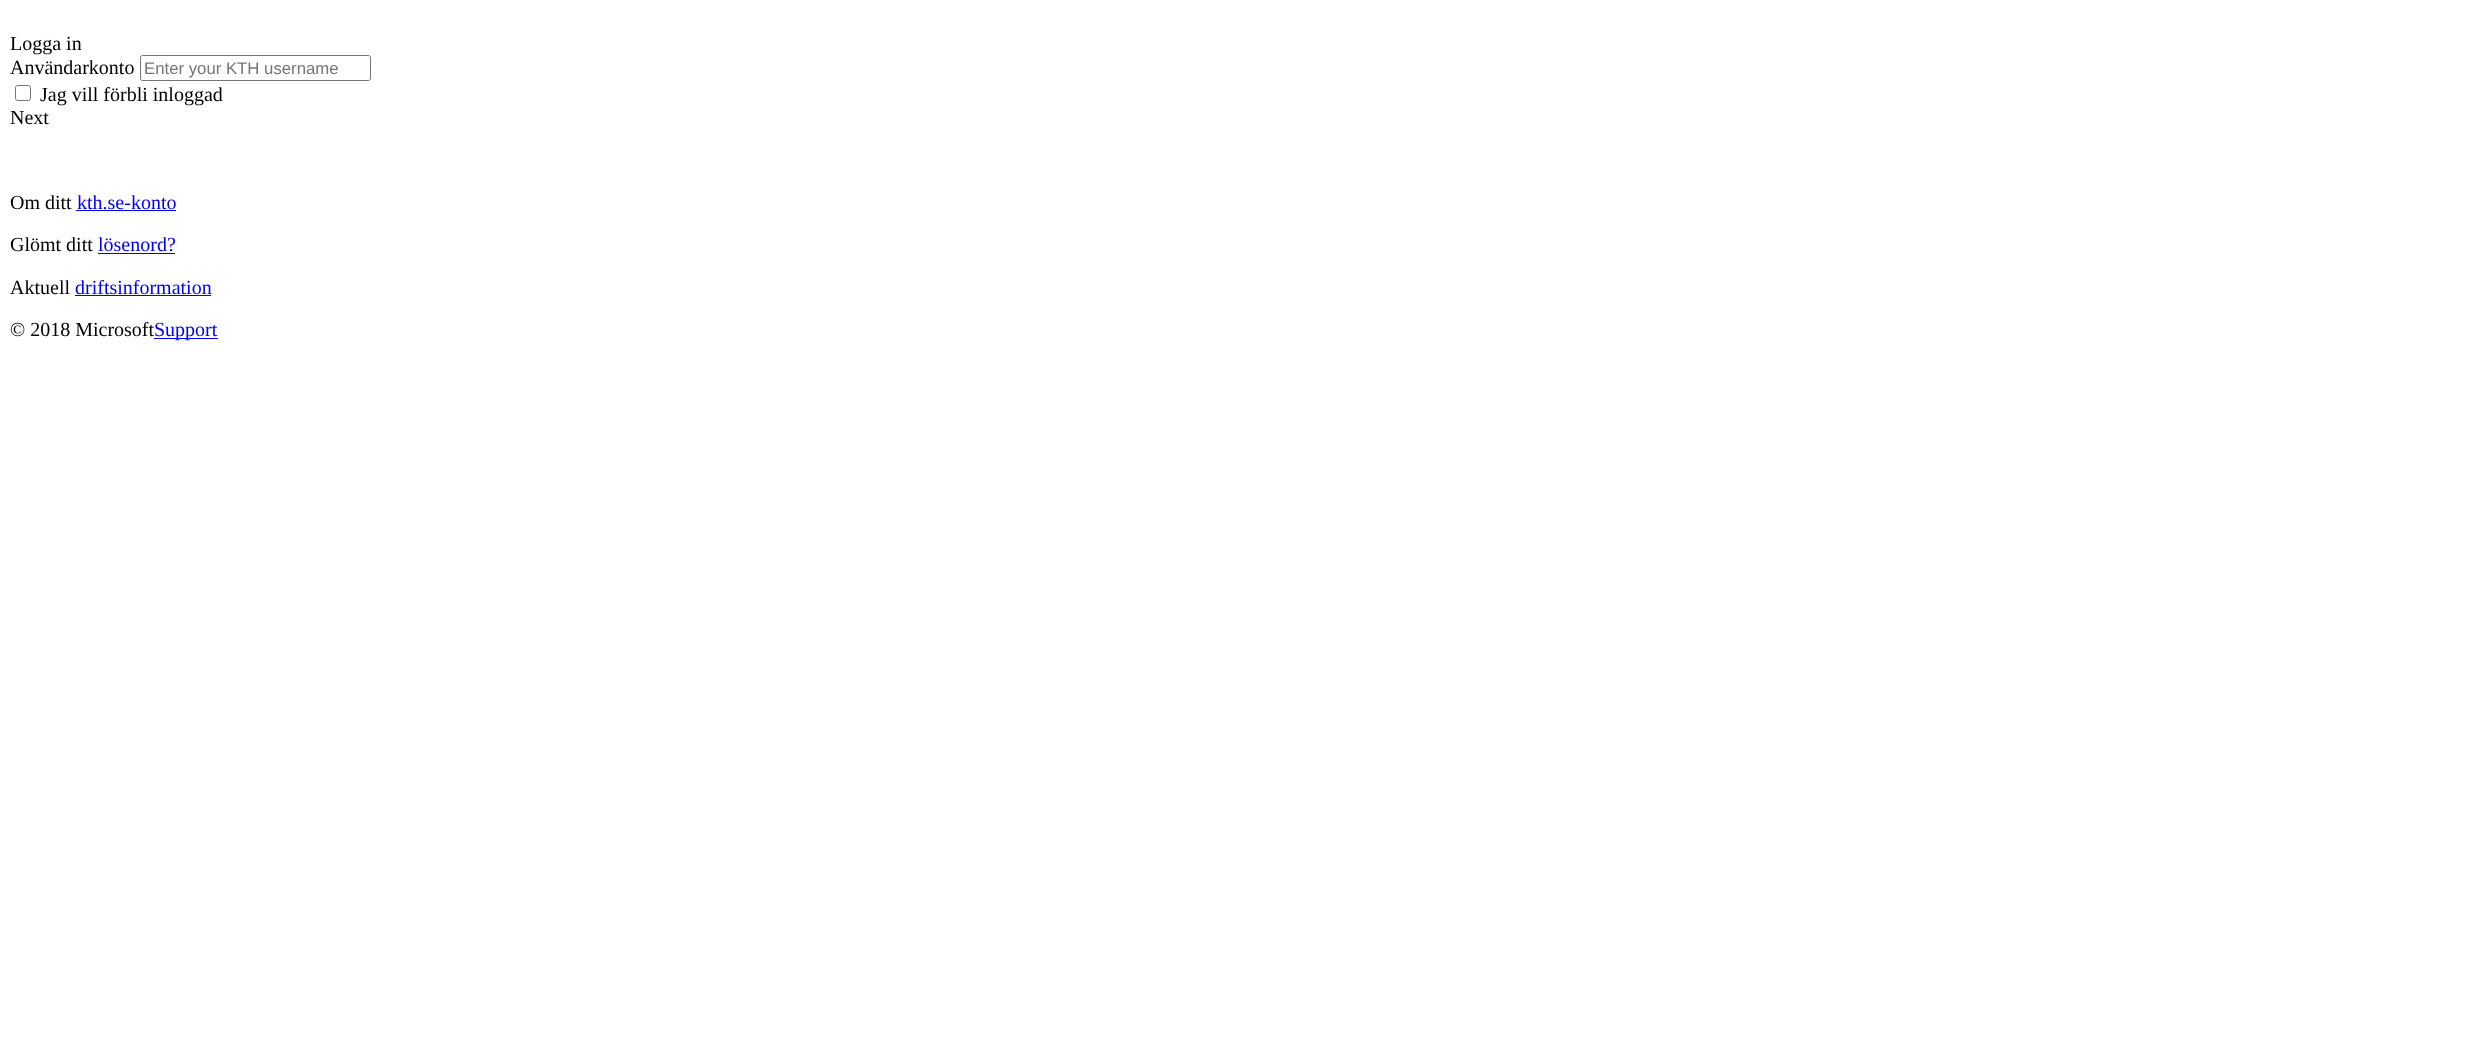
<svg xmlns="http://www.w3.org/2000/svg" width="2478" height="1038">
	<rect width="100%" height="100%" fill="#FFFFFF" />
	<g font-family="Liberation Serif" font-size="20" fill="#000000">
		<text x="10" y="50">Logga in</text>
		<text x="10" y="74">Användarkonto</text>
	</g>
	<rect x="140.5" y="55.5" width="230" height="25" rx="2" fill="none" stroke="#767676" />
	<text x="144" y="74" font-family="Liberation Sans" font-size="16.75" fill="#757575">Enter your KTH username</text>
	<rect x="15.5" y="85.5" width="15" height="15" rx="2" fill="none" stroke="#767676" />
	<g font-family="Liberation Serif" font-size="20" fill="#000000">
		<text x="40" y="101">Jag vill förbli inloggad</text>
		<text x="10" y="124">Next</text>
		<text x="10" y="209">Om ditt</text>
	</g>
	<text x="77" y="209" font-family="Liberation Serif" font-size="20" fill="#0000EE">kth.se-konto</text>
	<rect x="76" y="210" width="100" height="1" fill="#0000EE" />
	<text x="10" y="251" font-family="Liberation Serif" font-size="20" fill="#000000">Glömt ditt</text>
	<text x="98" y="251" font-family="Liberation Serif" font-size="20" fill="#0000EE">lösenord?</text>
	<rect x="98" y="253" width="77" height="1" fill="#0000EE" />
	<text x="10" y="294" font-family="Liberation Serif" font-size="20" fill="#000000">Aktuell</text>
	<text x="75" y="294" font-family="Liberation Serif" font-size="20" fill="#0000EE">driftsinformation</text>
	<rect x="75" y="295" width="136" height="1" fill="#0000EE" />
	<text x="10" y="336" font-family="Liberation Serif" font-size="20" fill="#000000">© 2018 Microsoft</text>
	<rect x="154" y="338" width="64" height="1" fill="#0000EE" />
	<text x="154" y="336" font-family="Liberation Serif" font-size="20" fill="#0000EE">Support</text>
</svg>
